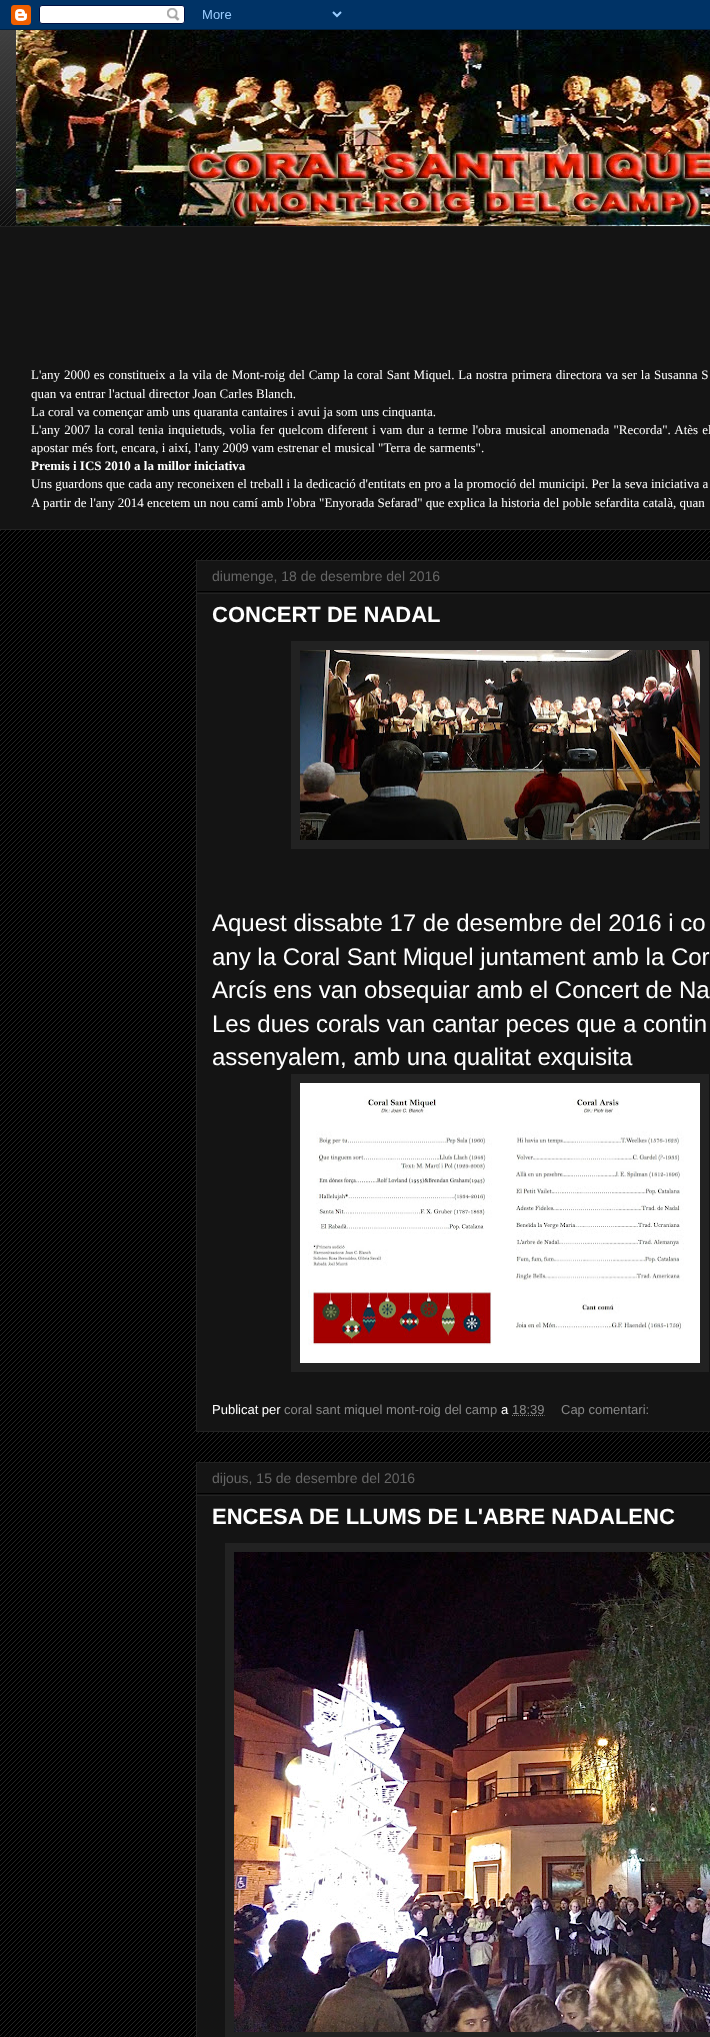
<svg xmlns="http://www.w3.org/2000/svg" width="710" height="2037">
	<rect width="100%" height="100%" fill="#000000" />
	<image x="0" y="30" width="710" height="2007" href="assets/img1.png" />
	<image x="0" y="0" width="710" height="30" href="assets/img2.png" />
	<image x="0" y="30" width="16" height="196" href="assets/img3.png" />
	<image x="16" y="30" width="694" height="196" href="assets/img4.png" />
	<rect x="0" y="227" width="710" height="302" fill="#141414" />
	<rect x="0" y="226" width="710" height="1" fill="#222222" />
	<g font-family="Liberation Serif" font-size="13" fill="#FFFFFF">
		<text x="31" y="379" word-spacing="0.6">L'any 2000 es constitueix a la vila de Mont-roig del Camp la coral Sant Miquel. La nostra primera directora va ser la Susanna S</text>
		<text x="31" y="398">quan va entrar l'actual director Joan Carles Blanch.</text>
		<text x="31" y="416">La coral va començar amb uns quaranta cantaires i avui ja som uns cinquanta.</text>
		<text x="31" y="434" word-spacing="1">L'any 2007 la coral tenia inquietuds, volia fer quelcom diferent i vam dur a terme l'obra musical anomenada "Recorda". Atès el</text>
		<text x="31" y="452">apostar més fort, encara, i així, l'any 2009 vam estrenar el musical "Terra de sarments".</text>
	</g>
	<text x="31" y="470" font-family="Liberation Serif" font-size="13" font-weight="700" fill="#FFFFFF">Premis i ICS 2010 a la millor iniciativa</text>
	<g font-family="Liberation Serif" font-size="13" fill="#FFFFFF">
		<text x="31" y="488">Uns guardons que cada any reconeixen el treball i la dedicació d'entitats en pro a la promoció del municipi. Per la seva iniciativa a</text>
		<text x="31" y="507">A partir de l'any 2014 encetem un nou camí amb l'obra "Enyorada Sefarad" que explica la historia del poble sefardita català, quan</text>
	</g>
	<rect x="0" y="529" width="710" height="1" fill="#222222" />
	<rect x="196.5" y="560.5" width="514" height="871" fill="#141414" stroke="#222222" />
	<rect x="197" y="591" width="513" height="1" fill="#000000" />
	<text x="212" y="581" font-family="Liberation Sans" font-size="14" fill="#666666">diumenge, 18 de desembre del 2016</text>
	<rect x="197" y="593" width="513" height="1" fill="#222222" />
	<text x="212" y="622" font-family="Liberation Sans" font-size="22" font-weight="700" fill="#FFFFFF">CONCERT DE NADAL</text>
	<rect x="291" y="641" width="418" height="208" fill="#222222" />
	<image x="300" y="650" width="400" height="190" href="assets/img5.png" />
	<g font-family="Liberation Sans" font-size="24" fill="#FFFFFF">
		<text x="212" y="931">Aquest dissabte 17 de desembre del 2016 i co</text>
		<text x="212" y="965">any la Coral Sant Miquel juntament amb la Cor</text>
		<text x="212" y="998">Arcís ens van obsequiar amb el Concert de Na</text>
		<text x="212" y="1032">Les dues corals van cantar peces que a contin</text>
		<text x="212" y="1065">assenyalem, amb una qualitat exquisita</text>
	</g>
	<rect x="291" y="1074" width="418" height="298" fill="#222222" />
	<image x="300" y="1083" width="400" height="280" href="assets/img6.png" />
	<text x="212" y="1414" font-family="Liberation Sans" font-size="13" fill="#FFFFFF">Publicat per</text>
	<text x="284" y="1414" font-family="Liberation Sans" font-size="13" fill="#888888">coral sant miquel mont-roig del camp</text>
	<text x="501" y="1414" font-family="Liberation Sans" font-size="13" fill="#FFFFFF">a</text>
	<path d="M512 1415.5H544.5" fill="none" stroke="#888888" stroke-dasharray="1 1" />
	<g font-family="Liberation Sans" font-size="13" fill="#888888">
		<text x="512" y="1414">18:39</text>
		<text x="561" y="1414">Cap comentari:</text>
	</g>
	<rect x="196.5" y="1462.5" width="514" height="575" fill="#141414" stroke="#222222" />
	<rect x="197" y="1493" width="513" height="1" fill="#000000" />
	<text x="212" y="1483" font-family="Liberation Sans" font-size="14" fill="#666666">dijous, 15 de desembre del 2016</text>
	<rect x="197" y="1495" width="513" height="1" fill="#222222" />
	<text x="212" y="1524" font-family="Liberation Sans" font-size="22" font-weight="700" fill="#FFFFFF">ENCESA DE LLUMS DE L'ABRE NADALENC</text>
	<rect x="225" y="1543" width="485" height="494" fill="#222222" />
	<image x="234" y="1552" width="476" height="480" href="assets/img7.png" />
</svg>
